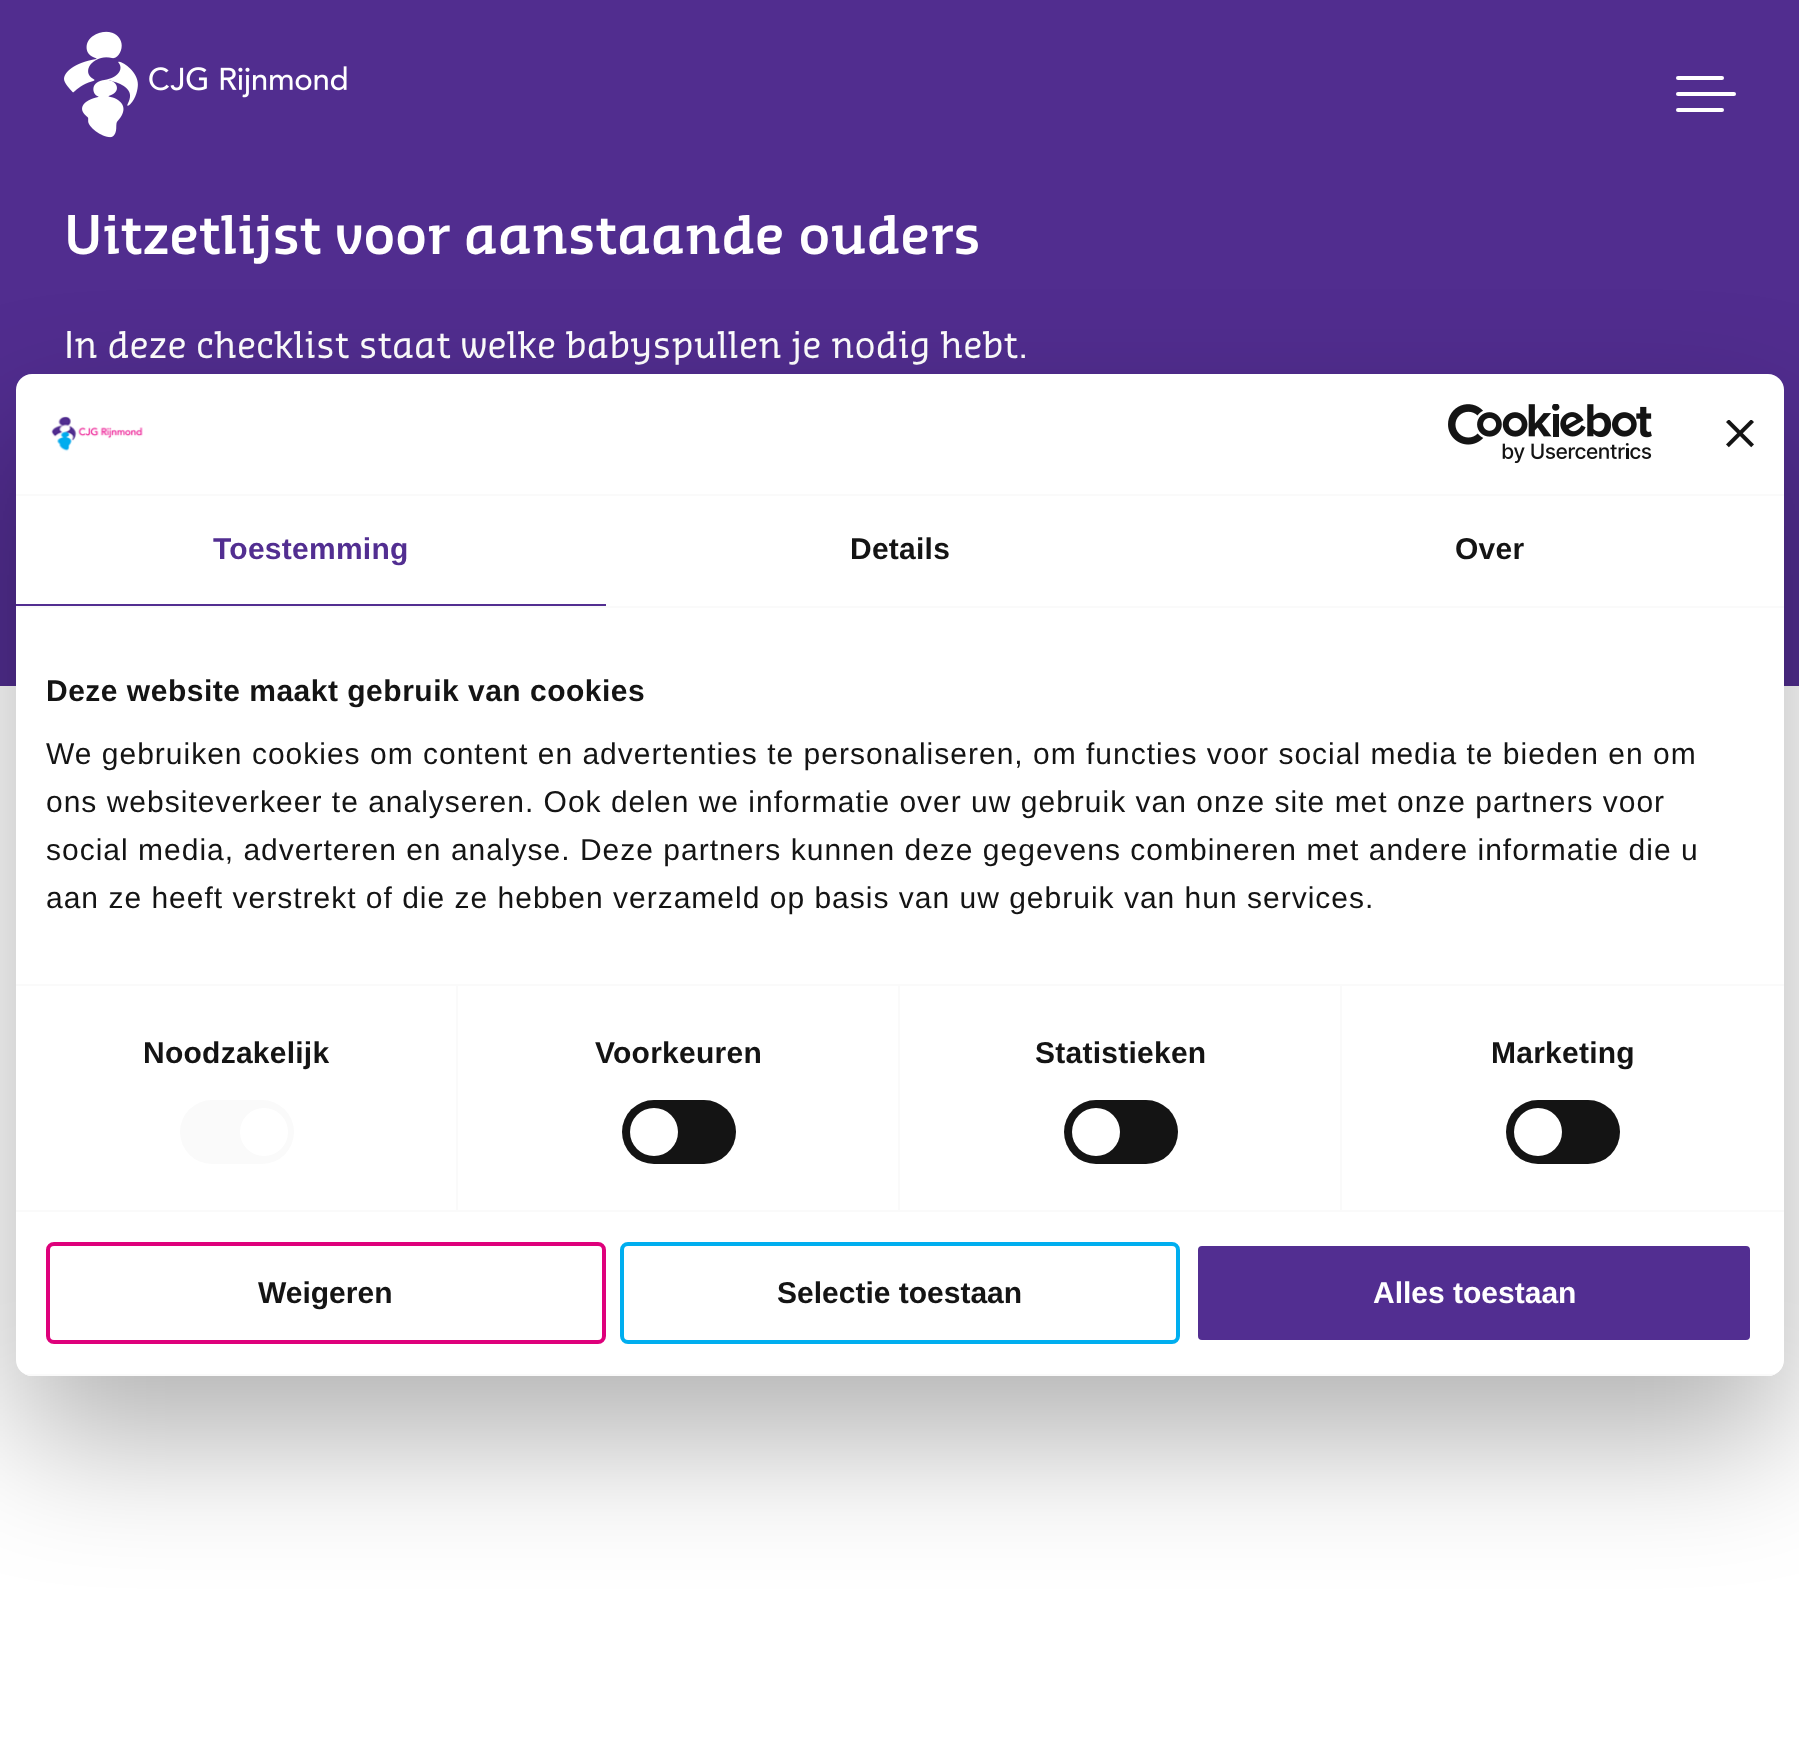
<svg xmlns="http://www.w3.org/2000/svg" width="1799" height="1748">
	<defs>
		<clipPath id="clip1"><rect x="16" y="374" width="1768" height="1002" rx="16" /></clipPath>
	</defs>
	<rect width="100%" height="100%" fill="#FFFFFF" />
	<rect x="0" y="0" width="1799" height="686" fill="#512D8F" />
	<image x="64" y="31" width="283" height="107" href="assets/img1.png" />
	<rect x="1676" y="76" width="48" height="4" rx="2" fill="#FFFFFF" />
	<rect x="1676" y="92" width="60" height="4" rx="2" fill="#FFFFFF" />
	<rect x="1676" y="108" width="48" height="4" rx="2" fill="#FFFFFF" />
	<text x="64" y="254" font-family="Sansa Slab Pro" font-size="52" font-weight="600" fill="#FFFFFF">Uitzetlijst voor aanstaande ouders</text>
	<text x="64" y="358" font-family="Sansa Slab Pro" font-size="36" fill="#FFFFFF">In deze checklist staat welke babyspullen je nodig hebt.</text>
	<rect x="16" y="438" width="1768" height="1002" rx="16" fill="#000000" fill-opacity="0.3" filter="blur(68px)" />
	<rect x="16" y="374" width="1768" height="1002" rx="16" fill="#FFFFFF" />
	<rect x="16" y="494" width="1768" height="2" fill="#FAFAFA" />
	<image x="51" y="416" width="92" height="36" href="assets/img2.png" />
	<image x="1448" y="404" width="204" height="60" href="assets/img3.png" />
	<image x="1726" y="420" width="28" height="28" href="assets/img4.png" />
	<rect x="16" y="606" width="1768" height="2" fill="#FAFAFA" />
	<rect x="16" y="604" width="590" height="2" fill="#522E91" />
	<text x="213" y="559" font-family="Liberation Sans" font-size="30" font-weight="700" letter-spacing="0.25" fill="#522E91">Toestemming</text>
	<g font-family="Liberation Sans" font-size="30" font-weight="700" letter-spacing="0.25" fill="#141414">
		<text x="850" y="559">Details</text>
		<text x="1455" y="559">Over</text>
	</g>
	<rect x="16" y="984" width="1768" height="2" fill="#FAFAFA" />
	<text x="46" y="701" font-family="Liberation Sans" font-size="30" font-weight="700" letter-spacing="0.5" fill="#141414">Deze website maakt gebruik van cookies</text>
	<g font-family="Liberation Sans" font-size="30" letter-spacing="1" fill="#141414">
		<text x="46" y="764">We gebruiken cookies om content en advertenties te personaliseren, om functies voor social media te bieden en om</text>
		<text x="46" y="812">ons websiteverkeer te analyseren. Ook delen we informatie over uw gebruik van onze site met onze partners voor</text>
		<text x="46" y="860">social media, adverteren en analyse. Deze partners kunnen deze gegevens combineren met andere informatie die u</text>
		<text x="46" y="908">aan ze heeft verstrekt of die ze hebben verzameld op basis van uw gebruik van hun services.</text>
	</g>
	<rect x="16" y="1210" width="1768" height="2" fill="#FAFAFA" />
	<rect x="456" y="986" width="2" height="224" fill="#FAFAFA" />
	<text x="143" y="1063" font-family="Liberation Sans" font-size="30" font-weight="700" letter-spacing="0.25" fill="#141414">Noodzakelijk</text>
	<rect x="180" y="1100" width="114" height="64" rx="32" fill="#FAFAFA" />
	<circle cx="264" cy="1132" r="24" fill="#FFFFFF" />
	<rect x="898" y="986" width="2" height="224" fill="#FAFAFA" />
	<text x="595" y="1063" font-family="Liberation Sans" font-size="30" font-weight="700" letter-spacing="0.25" fill="#141414">Voorkeuren</text>
	<rect x="622" y="1100" width="114" height="64" rx="32" fill="#141414" />
	<circle cx="654" cy="1132" r="24" fill="#FFFFFF" />
	<rect x="1340" y="986" width="2" height="224" fill="#FAFAFA" />
	<text x="1035" y="1063" font-family="Liberation Sans" font-size="30" font-weight="700" letter-spacing="0.25" fill="#141414">Statistieken</text>
	<rect x="1064" y="1100" width="114" height="64" rx="32" fill="#141414" />
	<circle cx="1096" cy="1132" r="24" fill="#FFFFFF" />
	<text x="1491" y="1063" font-family="Liberation Sans" font-size="30" font-weight="700" letter-spacing="0.25" fill="#141414">Marketing</text>
	<rect x="1506" y="1100" width="114" height="64" rx="32" fill="#141414" />
	<circle cx="1538" cy="1132" r="24" fill="#FFFFFF" />
	<g clip-path="url(#clip1)">
		<rect x="16" y="1374" width="1768" height="2" fill="#FAFAFA" />
	</g>
	<rect x="48" y="1244" width="556" height="98" rx="6" fill="none" stroke="#DE007B" stroke-width="4" />
	<text x="258" y="1303" font-family="Liberation Sans" font-size="30" font-weight="700" fill="#141414">Weigeren</text>
	<rect x="622" y="1244" width="556" height="98" rx="6" fill="none" stroke="#00AEEF" stroke-width="4" />
	<text x="777" y="1303" font-family="Liberation Sans" font-size="30" font-weight="700" fill="#141414">Selectie toestaan</text>
	<rect x="1196" y="1244" width="556" height="98" rx="6" fill="#522E91" stroke="#FFFFFF" stroke-width="4" />
	<text x="1373" y="1303" font-family="Liberation Sans" font-size="30" font-weight="700" fill="#FFFFFF">Alles toestaan</text>
</svg>
